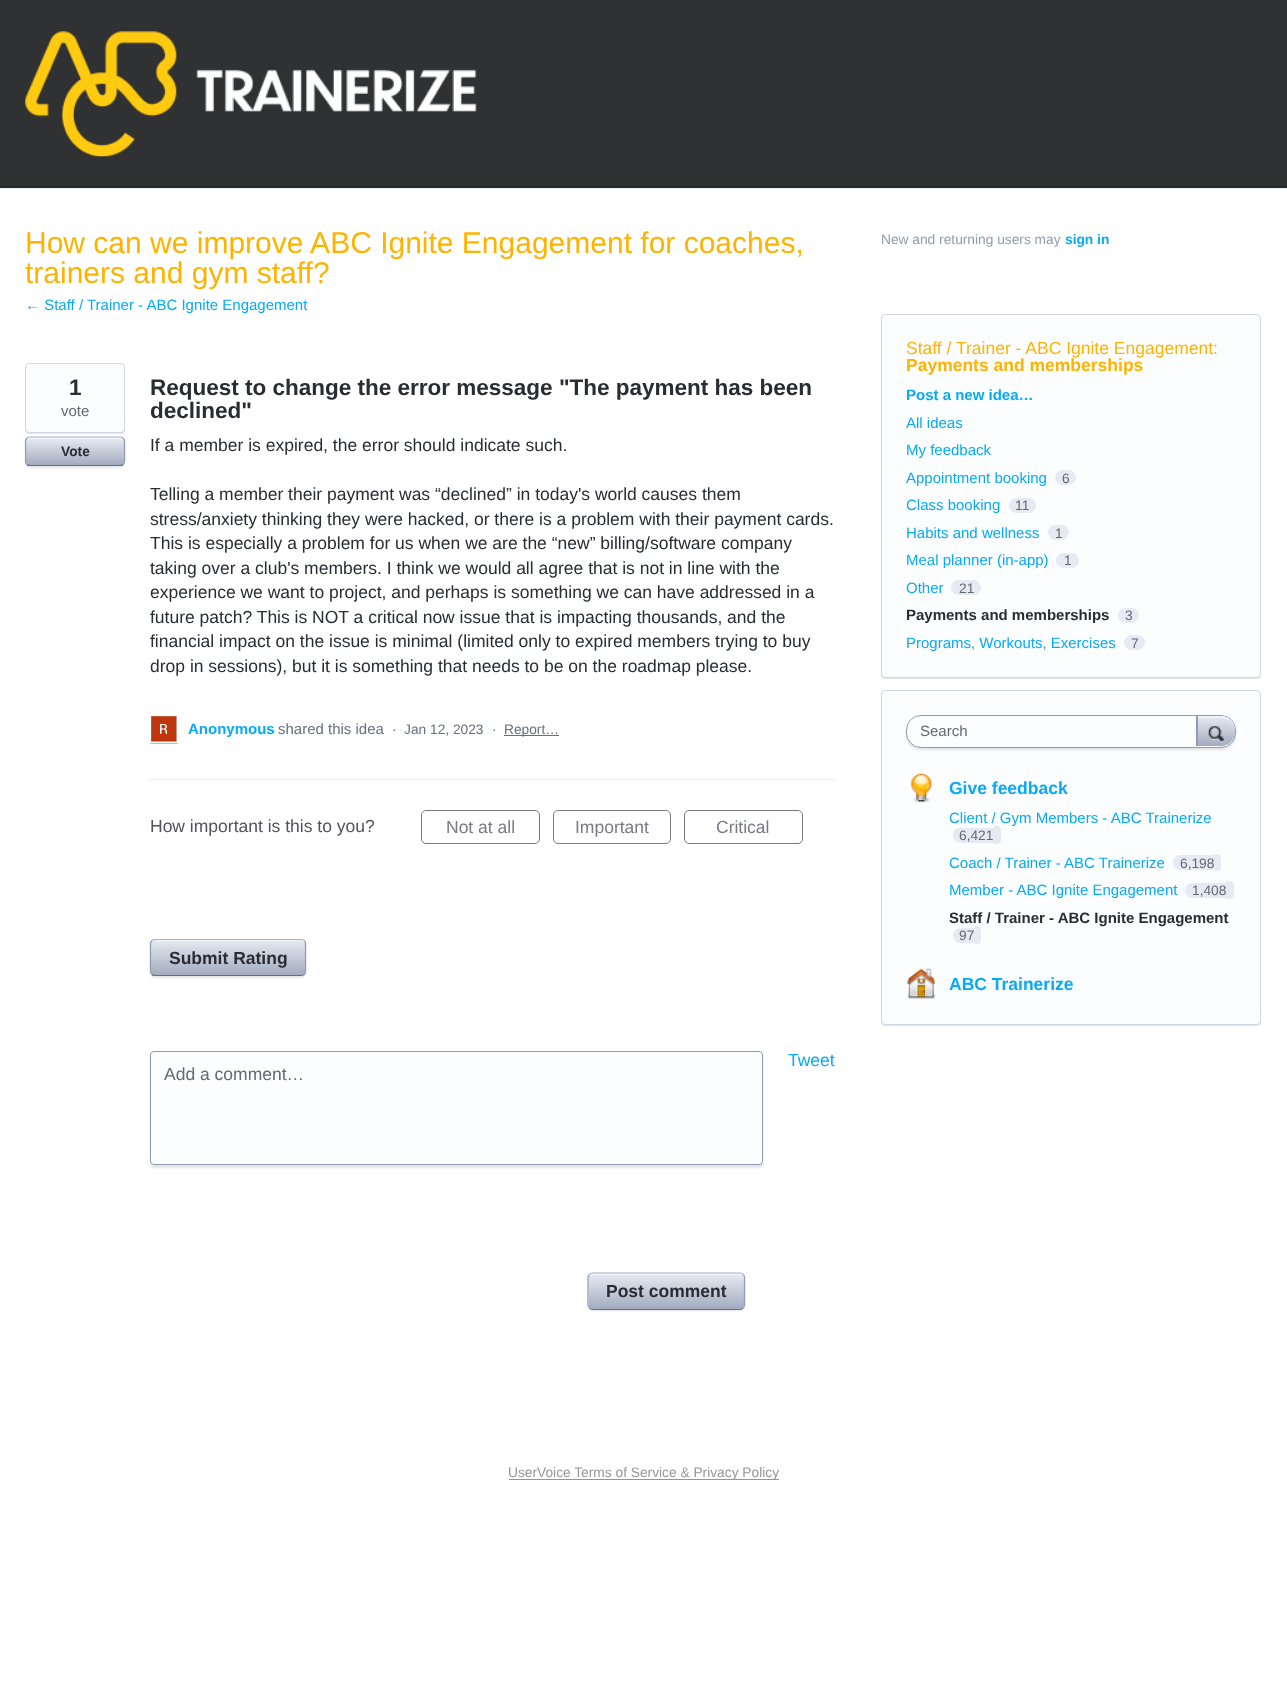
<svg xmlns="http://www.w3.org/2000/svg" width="1287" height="1689">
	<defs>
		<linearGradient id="g1" gradientUnits="userSpaceOnUse" x1="26" y1="438" x2="26" y2="465"><stop offset="0" stop-color="#E6EAF2" /><stop offset="1" stop-color="#A2ACBF" /></linearGradient>
		<clipPath id="clip1"><rect x="25" y="220" width="1238" height="1165" /></clipPath>
		<linearGradient id="g2" gradientUnits="userSpaceOnUse" x1="151" y1="940" x2="151" y2="975"><stop offset="0" stop-color="#E6EAF2" /><stop offset="1" stop-color="#A2ACBF" /></linearGradient>
		<linearGradient id="g3" gradientUnits="userSpaceOnUse" x1="589" y1="1274" x2="589" y2="1309"><stop offset="0" stop-color="#E6EAF2" /><stop offset="1" stop-color="#A2ACBF" /></linearGradient>
		<clipPath id="clip2"><rect x="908" y="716" width="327" height="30" rx="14" /></clipPath>
		<linearGradient id="g4" gradientUnits="userSpaceOnUse" x1="1198" y1="716" x2="1198" y2="746"><stop offset="0" stop-color="#E6EAF2" /><stop offset="1" stop-color="#A2ACBF" /></linearGradient>
	</defs>
	<rect width="100%" height="100%" fill="#FFFFFF" />
	<rect x="0" y="0" width="1287" height="188" fill="#303133" />
	<rect x="0" y="186" width="1287" height="1" fill="#242526" />
	<image x="25" y="31" width="452" height="126" href="assets/img1.png" />
	<rect x="0" y="188" width="1287" height="1" fill="#E3E8F2" />
	<g font-family="Liberation Sans" font-size="30" fill="#FFB300">
		<text x="25" y="253">How can we improve ABC Ignite Engagement for coaches,</text>
		<text x="25" y="283">trainers and gym staff?</text>
	</g>
	<text x="25" y="310" font-family="Liberation Sans" font-size="15" fill="#06AAF6">← Staff / Trainer - ABC Ignite Engagement</text>
	<rect x="25" y="364" width="100" height="70" rx="4" fill="#000000" fill-opacity="0.1" filter="blur(0.5px)" />
	<rect x="25.5" y="363.5" width="99" height="69" rx="3.5" fill="#FCFDFF" stroke="#CFD7E6" />
	<text x="69" y="395" font-family="Liberation Sans" font-size="22.5" font-weight="700" fill="#292C33">1</text>
	<text x="61" y="416" font-family="Liberation Sans" font-size="15" fill="#616973">vote</text>
	<rect x="25" y="438" width="100" height="30" rx="5" fill="#000000" fill-opacity="0.1" filter="blur(1px)" />
	<rect x="26" y="438" width="98" height="27" rx="4" fill="url(#g1)" />
	<path d="M30 439H120C122 439 124 440 124 442C124 440 122 438 120 438H30C28 438 26 440 26 442C26 440 28 439 30 439Z" fill="#FFFFFF" fill-opacity="0.5" />
	<path d="M27 438C27.5 437.5 29 437 30 437H120C121 437 122.5 437.5 123 438" fill="none" stroke="#A3B1CC" stroke-width="1.2" />
	<path d="M123 438C124 439 124.5 440 124.5 441V461C124.5 462.5 124 463.5 123 464.5" fill="none" stroke="#8F9BB3" stroke-width="1.2" />
	<path d="M123 464.5C122.5 465 121 465.5 120 465.5H30C29 465.5 27.5 465 27 464.5" fill="none" stroke="#666F80" stroke-width="1.2" />
	<g clip-path="url(#clip1)">
		<path d="M27 464.5C26 463.5 25.5 462.5 25.5 461V441C25.5 440 26 439 27 438" fill="none" stroke="#8F9BB3" stroke-width="1.2" />
	</g>
	<text x="61" y="456" font-family="Liberation Sans" font-size="13.75" font-weight="700" fill="#292C33">Vote</text>
	<g font-family="Liberation Sans" font-size="22.5" font-weight="700" fill="#292C33">
		<text x="150" y="395">Request to change the error message "The payment has been</text>
		<text x="150" y="418">declined"</text>
	</g>
	<g font-family="Liberation Sans" font-size="17.5" fill="#292C33">
		<text x="150" y="451">If a member is expired, the error should indicate such.</text>
		<text x="150" y="500">Telling a member their payment was “declined” in today's world causes them</text>
		<text x="150" y="525">stress/anxiety thinking they were hacked, or there is a problem with their payment cards.</text>
		<text x="150" y="549">This is especially a problem for us when we are the “new” billing/software company</text>
		<text x="150" y="574">taking over a club's members. I think we would all agree that is not in line with the</text>
		<text x="150" y="598">experience we want to project, and perhaps is something we can have addressed in a</text>
		<text x="150" y="623">future patch? This is NOT a critical now issue that is impacting thousands, and the</text>
		<text x="150" y="647">financial impact on the issue is minimal (limited only to expired members trying to buy</text>
		<text x="150" y="672">drop in sessions), but it is something that needs to be on the roadmap please.</text>
	</g>
	<rect x="150" y="716" width="28" height="28" fill="#000000" fill-opacity="0.25" filter="blur(0.5px)" />
	<rect x="150.5" y="715.5" width="27" height="27" fill="none" stroke="#FFFFFF" />
	<image x="151" y="716" width="26" height="26" href="assets/img2.png" />
	<text x="188" y="734" font-family="Liberation Sans" font-size="15" font-weight="700" fill="#06AAF6">Anonymous</text>
	<text x="278" y="734" font-family="Liberation Sans" font-size="15" fill="#666F80">shared this idea</text>
	<text x="392" y="734" font-family="Liberation Sans" font-size="13.75" fill="#616973">·</text>
	<text x="404" y="734" font-family="Liberation Sans" font-size="13.75" fill="#666F80">Jan 12, 2023</text>
	<text x="492" y="734" font-family="Liberation Sans" font-size="13.75" fill="#616973">·</text>
	<rect x="504" y="735" width="55" height="1" fill="#666F80" />
	<text x="504" y="734" font-family="Liberation Sans" font-size="13.75" fill="#666F80">Report…</text>
	<rect x="150" y="779" width="684" height="1" fill="#EBEBF1" />
	<text x="150" y="832" font-family="Liberation Sans" font-size="17.5" fill="#525260">How important is this to you?</text>
	<rect x="421.5" y="810.5" width="118" height="33" rx="4.5" fill="none" stroke="#797986" />
	<text x="446" y="833" font-family="Liberation Sans" font-size="17.5" fill="#797986">Not at all</text>
	<rect x="553.5" y="810.5" width="117" height="33" rx="4.5" fill="none" stroke="#797986" />
	<text x="575" y="833" font-family="Liberation Sans" font-size="17.5" fill="#797986">Important</text>
	<rect x="684.5" y="810.5" width="118" height="33" rx="4.5" fill="none" stroke="#797986" />
	<text x="716" y="833" font-family="Liberation Sans" font-size="17.5" fill="#797986">Critical</text>
	<rect x="150" y="940" width="156" height="38" rx="5" fill="#000000" fill-opacity="0.1" filter="blur(1px)" />
	<rect x="151" y="940" width="154" height="35" rx="4" fill="url(#g2)" />
	<path d="M155 941H301C303 941 305 943 305 945C305 943 304 941 302 940H155C152 940 151 942 151 945C151 943 153 941 155 941Z" fill="#FFFFFF" fill-opacity="0.5" />
	<path d="M152 940.5C152.5 940 154 939.5 155 939.5H301C302.5 939.5 303.5 940 304.5 940.5" fill="none" stroke="#A3B1CC" stroke-width="1.2" />
	<path d="M304.5 940.5C305 941.5 305.5 942.5 305.5 944V971C305.5 972.5 305 973.5 304.5 974.5" fill="none" stroke="#8F9BB3" stroke-width="1.2" />
	<path d="M304.5 974.5C303.5 975 302.5 975.5 301 975.5H155C154 975.5 152.5 975 152 974.5" fill="none" stroke="#666F80" stroke-width="1.2" />
	<path d="M152 974.5C151 973.5 150.5 972.5 150.5 971V944C150.5 942.5 151 941.5 152 940.5" fill="none" stroke="#8F9BB3" stroke-width="1.2" />
	<text x="169" y="964" font-family="Liberation Sans" font-size="17.5" font-weight="700" fill="#292C33">Submit Rating</text>
	<text x="788" y="1066" font-family="Liberation Sans" font-size="17.5" fill="#06AAF6">Tweet</text>
	<rect x="150" y="1054" width="613" height="114" rx="4" fill="#000000" fill-opacity="0.1" filter="blur(1px)" />
	<rect x="150.5" y="1051.5" width="612" height="113" rx="3.5" fill="#FCFDFF" stroke="#8F9BB3" />
	<text x="164" y="1080" font-family="Liberation Sans" font-size="17.5" fill="#616973">Add a comment…</text>
	<rect x="588" y="1274" width="157" height="37" rx="5" fill="#000000" fill-opacity="0.1" filter="blur(1px)" />
	<rect x="589" y="1274" width="155" height="35" rx="4" fill="url(#g3)" />
	<path d="M592 1275H740C742 1275 744 1277 744 1279C744 1277 743 1275 741 1274H592C590 1275 589 1277 589 1279C589 1277 590 1275 592 1275Z" fill="#FFFFFF" fill-opacity="0.5" />
	<path d="M589.5 1274.5C590 1273.5 591.5 1273 592.5 1273H740C741 1273 742.5 1273.5 743 1274.5" fill="none" stroke="#A3B1CC" stroke-width="1.2" />
	<path d="M743 1274.5C744 1275 744.5 1276.5 744.5 1277.5V1305C744.5 1306 744 1307.5 743 1308" fill="none" stroke="#8F9BB3" stroke-width="1.2" />
	<path d="M743 1308C742.5 1309 741 1309.5 740 1309.5H592.5C591.5 1309.5 590 1309 589.5 1308" fill="none" stroke="#666F80" stroke-width="1.2" />
	<path d="M589.5 1308C588.5 1307.5 588 1306 588 1305V1277.5C588 1276.5 588.5 1275 589.5 1274.5" fill="none" stroke="#8F9BB3" stroke-width="1.2" />
	<text x="606" y="1297" font-family="Liberation Sans" font-size="17.5" font-weight="700" fill="#292C33">Post comment</text>
	<text x="881" y="244" font-family="Liberation Sans" font-size="13.75" fill="#8F9BB3">New and returning users may</text>
	<text x="1065" y="244" font-family="Liberation Sans" font-size="13.75" font-weight="700" fill="#06AAF6">sign in</text>
	<rect x="881" y="315" width="380" height="364" rx="4" fill="#000000" fill-opacity="0.1" filter="blur(0.5px)" />
	<rect x="881.5" y="314.5" width="379" height="363" rx="3.5" fill="#FCFDFF" stroke="#CFD7E6" />
	<text x="906" y="354" font-family="Liberation Sans" font-size="17.5" fill="#FFB300">Staff / Trainer - ABC Ignite Engagement:</text>
	<text x="906" y="371" font-family="Liberation Sans" font-size="17.5" font-weight="700" fill="#FFB300">Payments and memberships</text>
	<text x="906" y="400" font-family="Liberation Sans" font-size="15" font-weight="700" fill="#06AAF6">Post a new idea…</text>
	<g font-family="Liberation Sans" font-size="15" fill="#06AAF6">
		<text x="906" y="428">All ideas</text>
		<text x="906" y="455">My feedback</text>
		<text x="906" y="483">Appointment booking</text>
	</g>
	<rect x="1055" y="470" width="21" height="15" rx="7.5" fill="#E7EAF2" />
	<text x="1062" y="483" font-family="Liberation Sans" font-size="13.75" fill="#616973">6</text>
	<text x="906" y="510" font-family="Liberation Sans" font-size="15" fill="#06AAF6">Class booking</text>
	<rect x="1009" y="498" width="27" height="15" rx="7.5" fill="#E7EAF2" />
	<text x="1015" y="510" font-family="Liberation Sans" font-size="13.75" fill="#616973">11</text>
	<text x="906" y="538" font-family="Liberation Sans" font-size="15" fill="#06AAF6">Habits and wellness</text>
	<rect x="1048" y="525" width="21" height="15" rx="7.5" fill="#E7EAF2" />
	<text x="1055" y="538" font-family="Liberation Sans" font-size="13.75" fill="#616973">1</text>
	<text x="906" y="565" font-family="Liberation Sans" font-size="15" fill="#06AAF6">Meal planner (in-app)</text>
	<rect x="1056" y="553" width="23" height="15" rx="7.5" fill="#E7EAF2" />
	<text x="1064" y="565" font-family="Liberation Sans" font-size="13.75" fill="#616973">1</text>
	<text x="906" y="593" font-family="Liberation Sans" font-size="15" fill="#06AAF6">Other</text>
	<rect x="951" y="580" width="30" height="15" rx="7.5" fill="#E7EAF2" />
	<text x="959" y="593" font-family="Liberation Sans" font-size="13.75" fill="#616973">21</text>
	<text x="906" y="620" font-family="Liberation Sans" font-size="15" font-weight="700" fill="#292C33">Payments and memberships</text>
	<rect x="1118" y="608" width="21" height="15" rx="7.5" fill="#E7EAF2" />
	<text x="1125" y="620" font-family="Liberation Sans" font-size="13.75" fill="#616973">3</text>
	<text x="906" y="648" font-family="Liberation Sans" font-size="15" fill="#06AAF6">Programs, Workouts, Exercises</text>
	<rect x="1124" y="635" width="21" height="15" rx="7.5" fill="#E7EAF2" />
	<text x="1131" y="648" font-family="Liberation Sans" font-size="13.75" fill="#616973">7</text>
	<rect x="881" y="691" width="380" height="335" rx="4" fill="#000000" fill-opacity="0.1" filter="blur(0.5px)" />
	<rect x="881.5" y="690.5" width="379" height="334" rx="3.5" fill="#FCFDFF" stroke="#CFD7E6" />
	<rect x="906" y="718" width="330" height="32" rx="15" fill="#000000" fill-opacity="0.1" filter="blur(1px)" />
	<rect x="906.5" y="715.5" width="329" height="32" rx="14.5" fill="#FCFDFF" stroke="#8F9BB3" />
	<text x="920" y="736" font-family="Liberation Sans" font-size="15" fill="#616973">Search</text>
	<g clip-path="url(#clip2)">
		<rect x="1196" y="716" width="40" height="32" rx="15" fill="#000000" fill-opacity="0.1" filter="blur(1px)" />
	</g>
	<path d="M1197.5 716H1221C1229 716 1235 722.5 1235 730V731C1235 739.5 1229 746 1221 746H1197.5Z" fill="url(#g4)" />
	<path d="M1198 718H1221C1229 718 1235 724 1235 731V730C1235 722.5 1229 716 1221 716H1197.5V746H1198Z" fill="#FFFFFF" fill-opacity="0.5" />
	<path d="M1198 716V717L1197 716Z" fill="#A3B1CC" />
	<path d="M1232.5 740C1234 737.5 1235 734.5 1235 731C1235 734.5 1234.5 737.5 1232.5 740ZM1197 716L1198 717V746H1196V716Z" fill="#8F9BB3" />
	<image x="1208" y="726" width="16" height="17" href="assets/img3.png" />
	<image x="911" y="773" width="21" height="30" href="assets/img4.png" />
	<text x="949" y="794" font-family="Liberation Sans" font-size="17.5" font-weight="700" fill="#06AAF6">Give feedback</text>
	<text x="949" y="823" font-family="Liberation Sans" font-size="15" fill="#06AAF6">Client / Gym Members - ABC Trainerize</text>
	<path d="M960.5 828H994V843H960.5C956.5 843 953 839.5 953 835.5C953 831.5 956.5 828 960.5 828Z" fill="#E7EAF2" />
	<text x="959" y="840" font-family="Liberation Sans" font-size="13.75" fill="#616973">6,421</text>
	<path d="M994 826H997.5C999.5 826 1001 827.5 1001 829.5V840.5C1001 842.5 999.5 844 997.5 844H994Z" fill="#E7EAF2" />
	<text x="949" y="868" font-family="Liberation Sans" font-size="15" fill="#06AAF6">Coach / Trainer - ABC Trainerize</text>
	<path d="M1180.5 855H1214V870H1180.5C1176.5 870 1173 866.5 1173 862.5C1173 858.5 1176.5 855 1180.5 855Z" fill="#E7EAF2" />
	<text x="1180" y="868" font-family="Liberation Sans" font-size="13.75" fill="#616973">6,198</text>
	<path d="M1214 854H1217.5C1219.5 854 1221 855.5 1221 857.5V867.5C1221 869.5 1219.5 871 1217.5 871H1214Z" fill="#E7EAF2" />
	<text x="949" y="895" font-family="Liberation Sans" font-size="15" fill="#06AAF6">Member - ABC Ignite Engagement</text>
	<path d="M1192.5 883H1226V898H1192.5C1188.5 898 1185 894.5 1185 890.5C1185 886.5 1188.5 883 1192.5 883Z" fill="#E7EAF2" />
	<text x="1192" y="895" font-family="Liberation Sans" font-size="13.75" fill="#616973">1,408</text>
	<path d="M1226 881H1230C1232 881 1234 883 1234 885V895C1234 897 1232 899 1230 899H1226Z" fill="#E7EAF2" />
	<text x="949" y="923" font-family="Liberation Sans" font-size="15" font-weight="700" fill="#292C33">Staff / Trainer - ABC Ignite Engagement</text>
	<path d="M960.5 928H975V943H960.5C956.5 943 953 939.5 953 935.5C953 931.5 956.5 928 960.5 928Z" fill="#E7EAF2" />
	<text x="959" y="940" font-family="Liberation Sans" font-size="13.75" fill="#616973">97</text>
	<path d="M975 926H978C979.5 926 981 927.5 981 929V941C981 942.5 979.5 944 978 944H975Z" fill="#E7EAF2" />
	<image x="907" y="968" width="29" height="31" href="assets/img5.png" />
	<text x="949" y="990" font-family="Liberation Sans" font-size="17.5" font-weight="700" fill="#06AAF6">ABC Trainerize</text>
	<rect x="509" y="1479" width="270" height="1" fill="#969696" />
	<text x="508" y="1477" font-family="Liberation Sans" font-size="13.75" fill="#969696">UserVoice Terms of Service &amp; Privacy Policy</text>
</svg>
